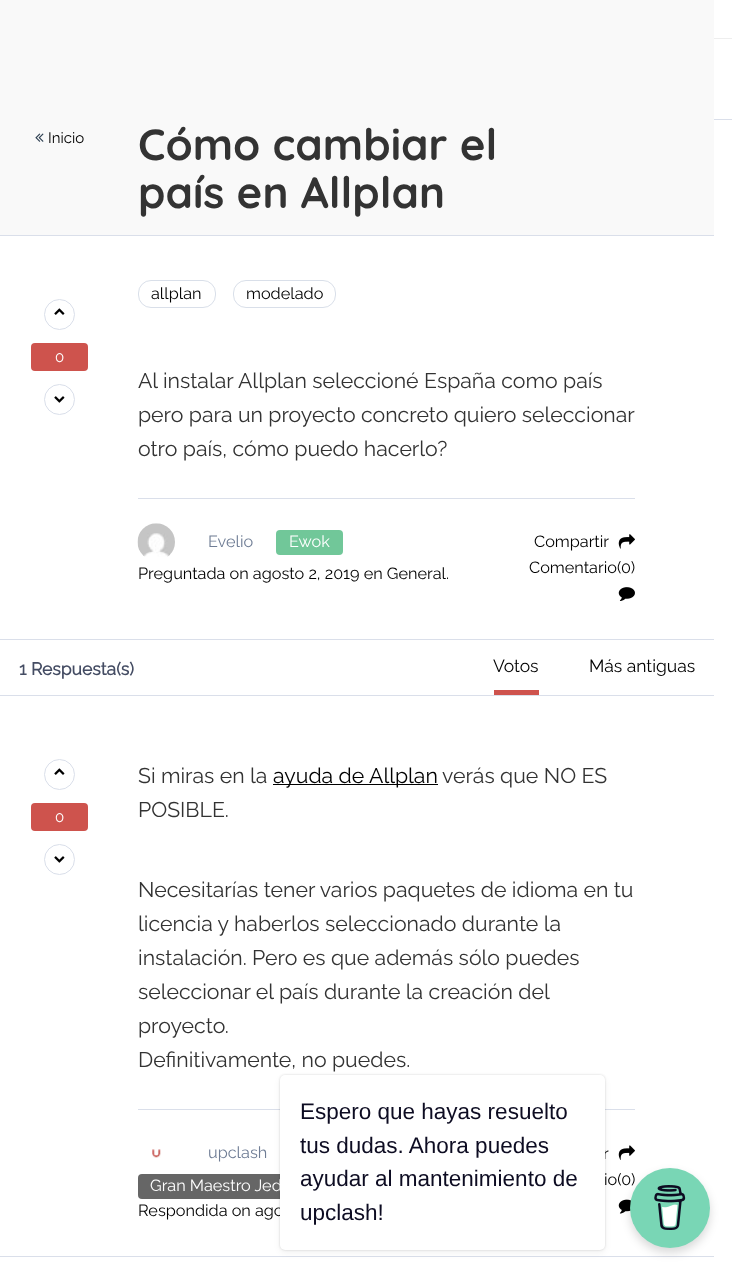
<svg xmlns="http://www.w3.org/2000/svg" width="732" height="1269">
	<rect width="100%" height="100%" fill="#FFFFFF" />
	<rect x="714" y="38" width="18" height="1" fill="#EEEEEE" />
	<rect x="714" y="119" width="18" height="1" fill="#DADFEA" />
	<rect x="0" y="0" width="714" height="235" fill="#F9F9F9" />
	<rect x="0" y="235" width="714" height="1" fill="#DADFEA" />
	<image x="35" y="133" width="9" height="9" href="assets/img1.png" />
	<text x="48" y="143" font-family="Raleway" font-size="15" font-weight="100" fill="#000000">Inicio</text>
	<g font-family="Quicksand" font-size="43.75" font-weight="700" fill="#333333">
		<text x="138" y="160">Cómo cambiar el</text>
		<text x="138" y="208">país en Allplan</text>
	</g>
	<rect x="0" y="639" width="714" height="1" fill="#DADFEA" />
	<circle cx="59.5" cy="314.5" r="15" fill="none" stroke="#DADFEA" />
	<image x="54" y="308" width="11" height="7" href="assets/img2.png" />
	<rect x="31" y="343" width="57" height="28" rx="4" fill="#CE534D" />
	<text x="55" y="362" font-family="Raleway" font-size="15" font-weight="100" fill="#FFFFFF">0</text>
	<circle cx="59.5" cy="399.5" r="15" fill="none" stroke="#DADFEA" />
	<image x="54" y="396" width="11" height="7" href="assets/img3.png" />
	<rect x="138.5" y="280.5" width="77" height="27" rx="12.5" fill="none" stroke="#D9DFE9" />
	<text x="151" y="299" font-family="Raleway" font-size="16.25" font-weight="100" fill="#000000">allplan</text>
	<rect x="233.5" y="280.5" width="102" height="27" rx="12.5" fill="none" stroke="#D9DFE9" />
	<text x="246" y="299" font-family="Raleway" font-size="16.25" font-weight="100" fill="#000000">modelado</text>
	<rect x="138" y="498" width="497" height="1" fill="#DADFEA" />
	<g font-family="Raleway" font-size="21.25" font-weight="100" fill="#333333">
		<text x="138" y="388">Al instalar Allplan seleccioné España como país</text>
		<text x="138" y="422">pero para un proyecto concreto quiero seleccionar</text>
		<text x="138" y="456">otro país, cómo puedo hacerlo?</text>
	</g>
	<image x="137" y="523" width="38" height="34" href="assets/img4.png" />
	<text x="208" y="547" font-family="Raleway" font-size="16.25" font-weight="100" fill="#6F7D95">Evelio</text>
	<rect x="276" y="530" width="67" height="25" rx="4" fill="#71C799" />
	<text x="289" y="547" font-family="Raleway" font-size="16.25" font-weight="100" fill="#FFFFFF">Ewok</text>
	<g font-family="Raleway" font-size="16.25" font-weight="100" fill="#000000">
		<text x="138" y="579">Preguntada on agosto 2, 2019 en General.</text>
		<text x="534" y="547">Compartir</text>
	</g>
	<image x="618" y="534" width="17" height="15" href="assets/img5.png" />
	<text x="529" y="573" font-family="Raleway" font-size="16.25" font-weight="100" fill="#000000">Comentario(0)</text>
	<image x="618" y="587" width="17" height="14" href="assets/img6.png" />
	<rect x="0" y="695" width="714" height="1" fill="#DADFEA" />
	<text x="19" y="675" font-family="Raleway" font-size="17.5" font-weight="700" fill="#444C63">1 Respuesta(s)</text>
	<rect x="494" y="690" width="45" height="5" fill="#CE534D" />
	<g font-family="Raleway" font-size="17.5" font-weight="100" fill="#000000">
		<text x="493" y="672">Votos</text>
		<text x="589" y="672">Más antiguas</text>
	</g>
	<rect x="0" y="1256" width="714" height="1" fill="#DADFEA" />
	<circle cx="59.5" cy="774.5" r="15" fill="none" stroke="#DADFEA" />
	<image x="54" y="768" width="11" height="7" href="assets/img2.png" />
	<rect x="31" y="803" width="57" height="28" rx="4" fill="#CE534D" />
	<text x="55" y="822" font-family="Raleway" font-size="15" font-weight="100" fill="#FFFFFF">0</text>
	<circle cx="59.5" cy="859.5" r="15" fill="none" stroke="#DADFEA" />
	<image x="54" y="856" width="11" height="7" href="assets/img3.png" />
	<rect x="138" y="1109" width="497" height="1" fill="#DADFEA" />
	<text x="138" y="783" font-family="Raleway" font-size="21.25" font-weight="100" fill="#333333">Si miras en la</text>
	<rect x="273" y="784" width="165" height="1" fill="#000000" />
	<text x="273" y="783" font-family="Raleway" font-size="21.25" font-weight="100" fill="#000000">ayuda de Allplan</text>
	<g font-family="Raleway" font-size="21.25" font-weight="100" fill="#333333">
		<text x="442" y="783">verás que NO ES</text>
		<text x="138" y="817">POSIBLE.</text>
		<text x="138" y="897">Necesitarías tener varios paquetes de idioma en tu</text>
		<text x="138" y="931">licencia y haberlos seleccionado durante la</text>
		<text x="138" y="965">instalación. Pero es que además sólo puedes</text>
		<text x="138" y="999">seleccionar el país durante la creación del</text>
		<text x="138" y="1033">proyecto.</text>
		<text x="138" y="1067">Definitivamente, no puedes.</text>
	</g>
	<image x="152" y="1149" width="9" height="9" href="assets/img7.png" />
	<text x="208" y="1158" font-family="Raleway" font-size="16.25" font-weight="100" fill="#6F7D95">upclash</text>
	<rect x="138" y="1174" width="160" height="25" rx="4" fill="#666666" />
	<text x="150" y="1191" font-family="Raleway" font-size="16.25" font-weight="100" fill="#FFFFFF">Gran Maestro Jed</text>
	<g font-family="Raleway" font-size="16.25" font-weight="100" fill="#000000">
		<text x="138" y="1216">Respondida on ago</text>
		<text x="603" y="1159">r</text>
	</g>
	<image x="618" y="1145" width="17" height="15" href="assets/img8.png" />
	<text x="604" y="1185" font-family="Raleway" font-size="16.25" font-weight="100" fill="#000000">io(0)</text>
	<image x="618" y="1199" width="13" height="15" href="assets/img9.png" />
	<rect x="280" y="1075" width="325" height="175" rx="5" fill="#000000" fill-opacity="0.15" filter="blur(1px)" />
	<rect x="280" y="1078" width="325" height="175" rx="5" fill="#000000" fill-opacity="0.05" filter="blur(3px)" />
	<rect x="280" y="1075" width="325" height="175" rx="5" fill="#FFFFFF" />
	<g font-family="Liberation Sans" font-size="22.5" fill="#0D0C22">
		<text x="300" y="1119">Espero que hayas resuelto</text>
		<text x="300" y="1153">tus dudas. Ahora puedes</text>
		<text x="300" y="1186">ayudar al mantenimiento de</text>
		<text x="300" y="1220">upclash!</text>
	</g>
	<rect x="630" y="1173" width="80" height="80" rx="40" fill="#000000" fill-opacity="0.15" filter="blur(5px)" />
	<circle cx="670" cy="1208" r="40" fill="#79D6B5" />
	<image x="654" y="1185" width="32" height="45" href="assets/img10.png" />
</svg>
